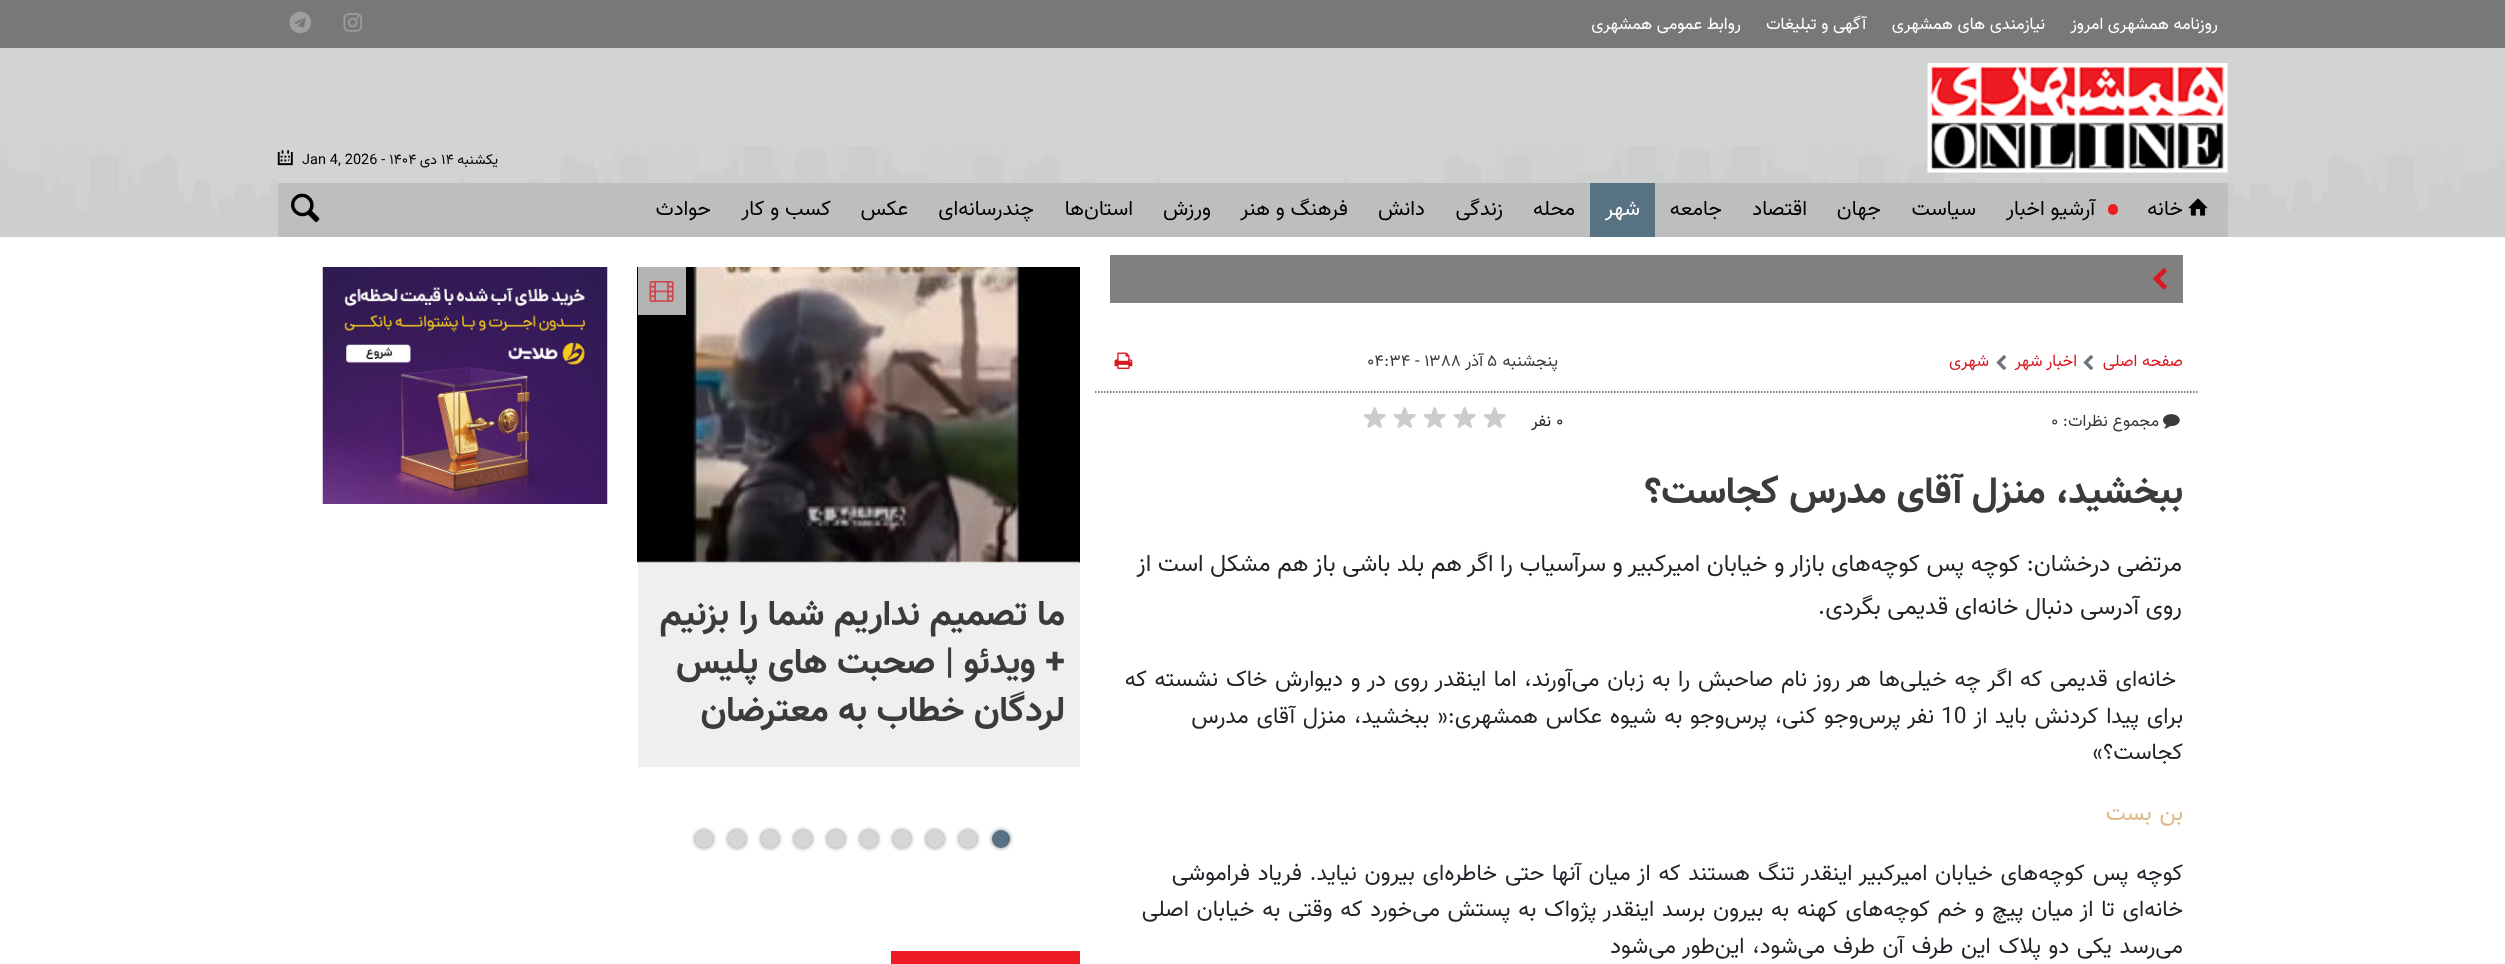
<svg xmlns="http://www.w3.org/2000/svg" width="2505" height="964">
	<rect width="100%" height="100%" fill="#FFFFFF" />
	<rect x="0" y="48" width="2505" height="189" fill="#D3D3D3" />
	<image x="0" y="146" width="2505" height="91" href="assets/img1.png" />
	<rect x="0" y="0" width="2505" height="48" fill="#787878" />
	<g font-family="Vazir" font-size="16.75" direction="rtl" fill="#FFFFFF">
		<text x="2218" y="29">روزنامه همشهری امروز</text>
		<text x="2045" y="29">نیازمندی های همشهری</text>
		<text x="1866" y="29">آگهی و تبلیغات</text>
		<text x="1741" y="29">روابط عمومی همشهری</text>
	</g>
	<image x="343" y="13" width="19" height="19" href="assets/img2.png" />
	<image x="289" y="11" width="22" height="23" href="assets/img3.png" />
	<image x="1927" y="63" width="301" height="110" href="assets/img4.png" />
	<text x="498" y="164" font-family="Vazir" font-size="14.5" direction="rtl" fill="#000000">یکشنبه</text>
	<text x="441" y="164" font-family="Vazir" font-size="14.5" fill="#000000">۱۴</text>
	<text x="437" y="164" font-family="Vazir" font-size="14.5" direction="rtl" fill="#000000">دی</text>
	<text x="302" y="164" font-family="Vazir" font-size="14.5" fill="#000000">Jan 4, 2026 - ۱۴۰۴</text>
	<image x="277" y="150" width="16" height="16" href="assets/img5.png" />
	<rect x="278" y="183" width="1950" height="54" fill="#BEBEBE" />
	<image x="2188" y="198" width="20" height="18" href="assets/img6.png" />
	<text x="2183" y="215" font-family="Vazir" font-size="21" direction="rtl" fill="#000000">خانه</text>
	<rect x="2108" y="204" width="10" height="11" rx="5" fill="#EB1F1F" />
	<g font-family="Vazir" font-size="21" direction="rtl" fill="#000000">
		<text x="2095" y="215">آرشیو اخبار</text>
		<text x="1976" y="215">سياست</text>
		<text x="1881" y="215">جهان</text>
		<text x="1807" y="215">اقتصاد</text>
		<text x="1722" y="215">جامعه</text>
	</g>
	<rect x="1590" y="183" width="65" height="54" fill="#577282" />
	<text x="1640" y="215" font-family="Vazir" font-size="21" direction="rtl" fill="#FFFFFF">شهر</text>
	<g font-family="Vazir" font-size="21" direction="rtl" fill="#000000">
		<text x="1575" y="215">محله</text>
		<text x="1503" y="215">زندگی</text>
		<text x="1425" y="215">دانش</text>
		<text x="1348" y="215">فرهنگ و هنر</text>
		<text x="1211" y="215">ورزش</text>
		<text x="1133" y="215">استان‌ها</text>
		<text x="1034" y="215">چندرسانه‌ای</text>
		<text x="908" y="215">عکس</text>
		<text x="831" y="215">کسب و کار</text>
		<text x="711" y="215">حوادث</text>
	</g>
	<image x="291" y="193" width="29" height="30" href="assets/img7.png" />
	<rect x="1110" y="255" width="1073" height="48" fill="#808080" />
	<image x="2153" y="268" width="14" height="22" href="assets/img8.png" />
	<text x="2183" y="366" font-family="Vazir" font-size="16.75" direction="rtl" fill="#D81920">صفحه اصلی</text>
	<image x="2083" y="355" width="11" height="15" href="assets/img9.png" />
	<text x="2077" y="366" font-family="Vazir" font-size="16.75" direction="rtl" fill="#D81920">اخبار شهر</text>
	<image x="1996" y="355" width="11" height="15" href="assets/img9.png" />
	<text x="1989" y="366" font-family="Vazir" font-size="16.75" direction="rtl" fill="#D81920">شهری</text>
	<image x="2163" y="414" width="17" height="15" href="assets/img10.png" />
	<text x="2159" y="426" font-family="Vazir" font-size="16.75" direction="rtl" fill="#3B3B3B">مجموع نظرات:</text>
	<text x="2051" y="426" font-family="Vazir" font-size="16.75" fill="#3B3B3B">۰</text>
	<text x="1558" y="366" font-family="Vazir" font-size="16.75" direction="rtl" fill="#3B3B3B">پنجشنبه</text>
	<text x="1487" y="366" font-family="Vazir" font-size="16.75" fill="#3B3B3B">۵</text>
	<text x="1483" y="366" font-family="Vazir" font-size="16.75" direction="rtl" fill="#3B3B3B">آذر</text>
	<text x="1367" y="366" font-family="Vazir" font-size="16.75" fill="#3B3B3B">۰۴:۳۴ - ۱۳۸۸</text>
	<text x="1556" y="426" font-family="Vazir" font-size="16.75" fill="#212529">۰</text>
	<text x="1551" y="426" font-family="Vazir" font-size="16.75" direction="rtl" fill="#212529">نفر</text>
	<image x="1483" y="407" width="23" height="21" href="assets/img11.png" />
	<image x="1453" y="407" width="23" height="21" href="assets/img11.png" />
	<image x="1423" y="407" width="23" height="21" href="assets/img11.png" />
	<image x="1393" y="407" width="23" height="21" href="assets/img11.png" />
	<image x="1363" y="407" width="23" height="21" href="assets/img11.png" />
	<image x="1114" y="352" width="19" height="17" href="assets/img12.png" />
	<path d="M1095 392H2197.5" fill="none" stroke="#555555" stroke-width="1.5" stroke-dasharray="1.5 1.5" />
	<text x="2183" y="503" font-family="Vazir" font-size="38.4" font-weight="700" direction="rtl" fill="#3B3B3B">ببخشید، منزل آقای مدرس کجاست؟</text>
	<g font-family="Vazir" font-size="24" direction="rtl" fill="#212529">
		<text x="2182" y="571">مرتضی درخشان:</text>
		<text x="2020" y="571">کوچه پس کوچه‌های بازار و خیابان امیرکبیر و سرآسیاب را اگر هم بلد باشی باز هم مشکل است از</text>
		<text x="2182" y="614">روی آدرسی دنبال خانه‌ای قدیمی بگردی.</text>
	</g>
	<g font-family="Vazir" font-size="22.8" direction="rtl" fill="#212529">
		<text x="2176" y="686" word-spacing="1.5">خانه‌ای قدیمی که اگر چه خیلی‌ها ‌هر روز نام صاحبش را به زبان می‌آورند، اما اینقدر روی در و دیوارش خاک نشسته که</text>
		<text x="2183" y="723" word-spacing="1.5">برای پیدا کردنش باید از</text>
	</g>
	<text x="1941" y="723" font-family="Vazir" font-size="22.8" fill="#212529">10</text>
	<g font-family="Vazir" font-size="22.8" direction="rtl" fill="#212529">
		<text x="1934" y="723" word-spacing="1.5">نفر پرس‌وجو کنی، پرس‌وجو به شیوه عکاس همشهری:« ببخشید، منزل آقای مدرس</text>
		<text x="2183" y="759">کجاست؟»</text>
	</g>
	<text x="2183" y="820" word-spacing="1.5" font-family="Vazir" font-size="22.8" direction="rtl" fill="#DEB887">بن بست</text>
	<g font-family="Vazir" font-size="22.8" direction="rtl" fill="#212529">
		<text x="2183" y="880" word-spacing="1.5">کوچه پس کوچه‌های خیابان امیرکبیر اینقدر تنگ هستند که از میان آنها حتی خاطره‌ای بیرون نیاید. فریاد فراموشی</text>
		<text x="2183" y="916" word-spacing="1.5">خانه‌ای تا از میان پیچ و خم کوچه‌های کهنه به بیرون برسد اینقدر پژواک به پستش می‌خورد که وقتی به خیابان اصلی</text>
		<text x="2183" y="953" word-spacing="1.5">می‌رسد یکی دو پلاک این طرف آن طرف می‌شود، این‌طور می‌شود</text>
	</g>
	<image x="1079" y="267" width="1" height="296" href="assets/img13.png" />
	<image x="637" y="267" width="443" height="296" href="assets/img14.png" />
	<rect x="638" y="267" width="48" height="48" fill="#B3B3B3" />
	<image x="649" y="281" width="25" height="21" href="assets/img15.png" />
	<rect x="638" y="563" width="442" height="204" fill="#EFEFEF" />
	<g font-family="Vazir" font-size="36" font-weight="700" direction="rtl" fill="#3B3B3B">
		<text x="1065" y="625">ما تصمیم نداریم شما را بزنیم</text>
		<text x="1065" y="673">+ ویدئو | صحبت های پلیس</text>
		<text x="1065" y="721">لردگان خطاب به معترضان</text>
	</g>
	<rect x="992" y="830" width="18" height="18" rx="9" fill="#777777" filter="blur(2px)" />
	<circle cx="1001" cy="839" r="9" fill="#577282" />
	<rect x="959" y="830" width="18" height="18" rx="9" fill="#777777" filter="blur(2px)" />
	<circle cx="968" cy="839" r="9" fill="#D6D6D6" />
	<rect x="926" y="830" width="18" height="18" rx="9" fill="#777777" filter="blur(2px)" />
	<circle cx="935" cy="839" r="9" fill="#D6D6D6" />
	<rect x="893" y="830" width="18" height="18" rx="9" fill="#777777" filter="blur(2px)" />
	<circle cx="902" cy="839" r="9" fill="#D6D6D6" />
	<rect x="860" y="830" width="18" height="18" rx="9" fill="#777777" filter="blur(2px)" />
	<circle cx="869" cy="839" r="9" fill="#D6D6D6" />
	<rect x="827" y="830" width="18" height="18" rx="9" fill="#777777" filter="blur(2px)" />
	<circle cx="836" cy="839" r="9" fill="#D6D6D6" />
	<rect x="794" y="830" width="18" height="18" rx="9" fill="#777777" filter="blur(2px)" />
	<circle cx="803" cy="839" r="9" fill="#D6D6D6" />
	<rect x="761" y="830" width="18" height="18" rx="9" fill="#777777" filter="blur(2px)" />
	<circle cx="770" cy="839" r="9" fill="#D6D6D6" />
	<rect x="728" y="830" width="18" height="18" rx="9" fill="#777777" filter="blur(2px)" />
	<circle cx="737" cy="839" r="9" fill="#D6D6D6" />
	<rect x="695" y="830" width="18" height="18" rx="9" fill="#777777" filter="blur(2px)" />
	<circle cx="704" cy="839" r="9" fill="#D6D6D6" />
	<rect x="891" y="951" width="189" height="13" fill="#ED1B24" />
	<image x="322" y="267" width="286" height="237" href="assets/img16.png" />
</svg>
